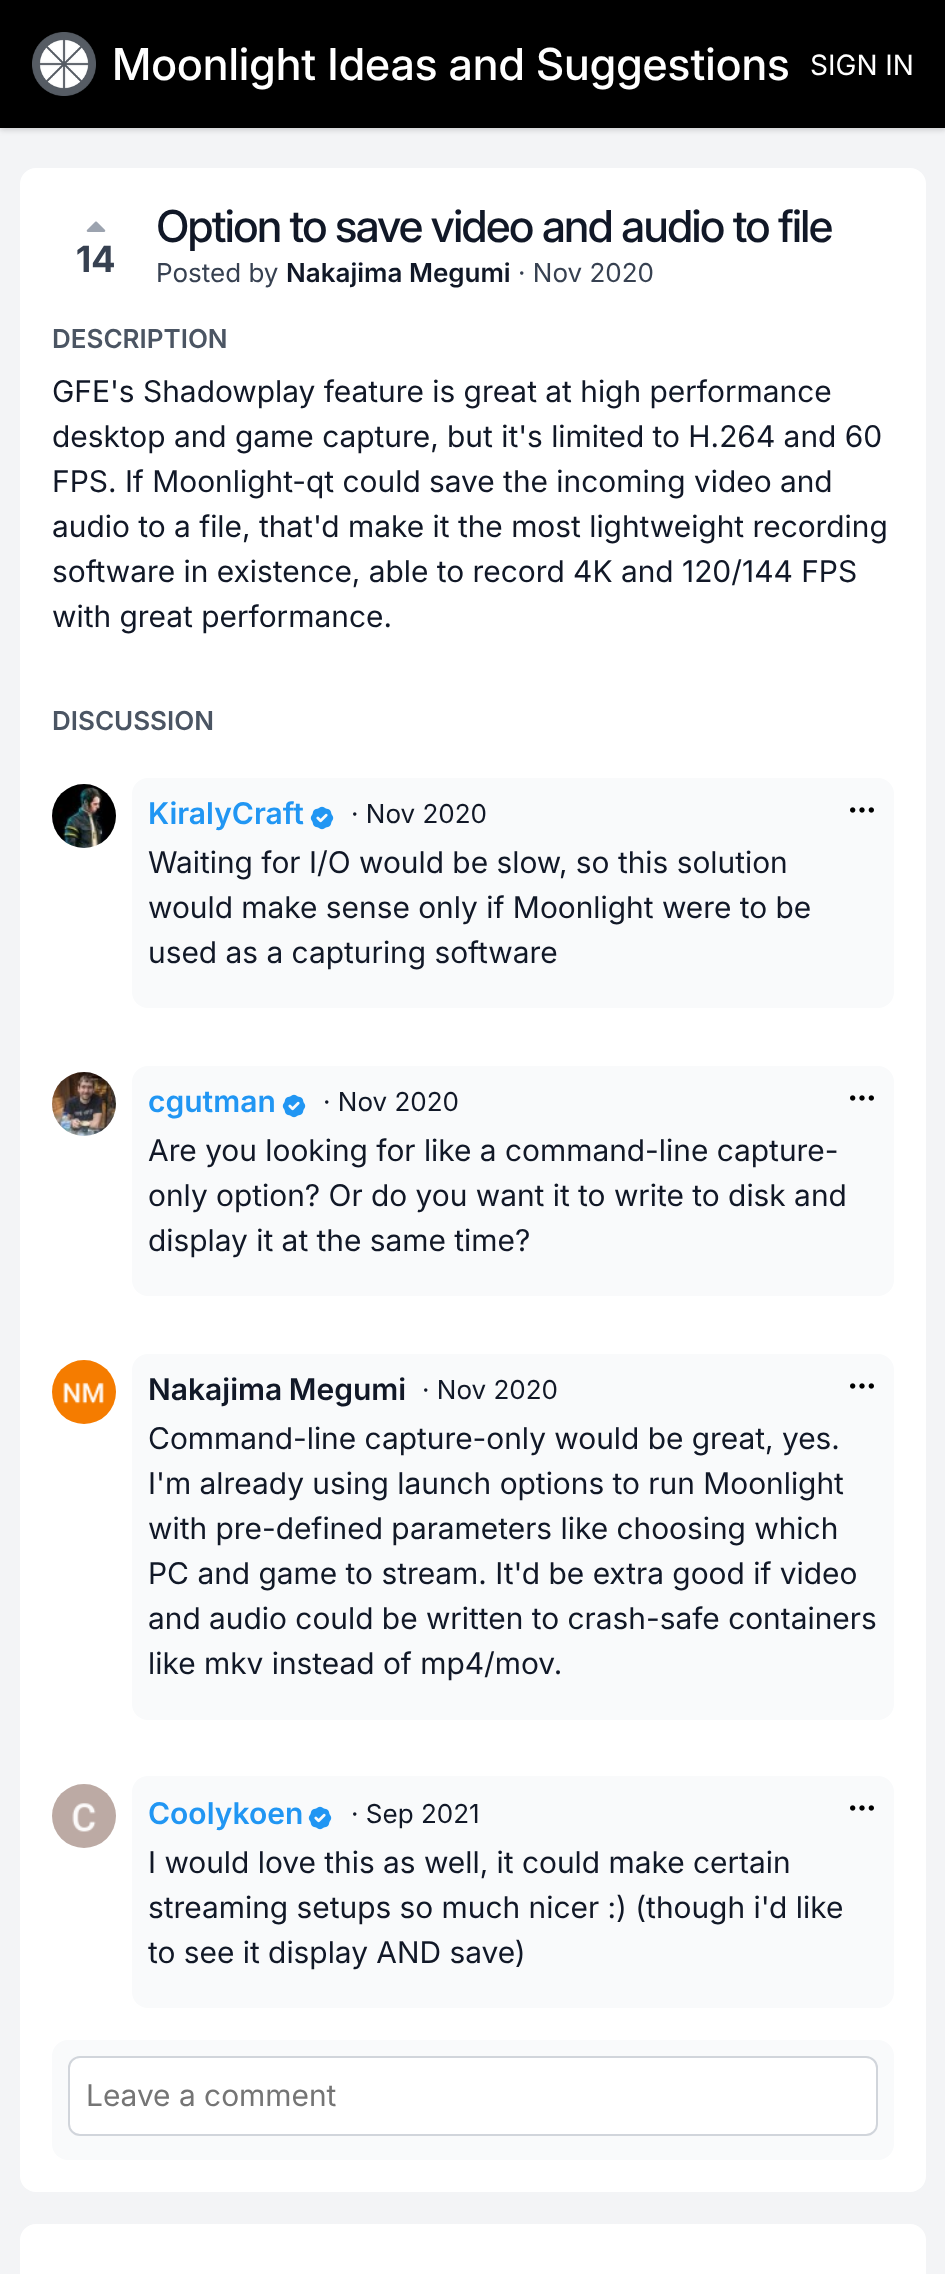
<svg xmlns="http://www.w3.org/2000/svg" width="945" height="2274">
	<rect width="100%" height="100%" fill="#F3F4F6" />
	<rect x="0" y="2" width="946" height="128" fill="#000000" fill-opacity="0.06" filter="blur(2px)" />
	<rect x="0" y="2" width="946" height="128" fill="#000000" fill-opacity="0.1" filter="blur(3px)" />
	<rect x="0" y="0" width="945" height="128" fill="#000000" />
	<image x="32" y="32" width="64" height="64" href="assets/img1.png" />
	<text x="112" y="80" font-family="Inter" font-size="44" font-weight="500" fill="#FFFFFF">Moonlight Ideas and Suggestions</text>
	<text x="810" y="75" font-family="Inter" font-size="28" fill="#FFFFFF">SIGN IN</text>
	<rect x="20" y="168" width="906" height="2024" rx="16" fill="#FFFFFF" />
	<image x="86" y="221" width="20" height="11" href="assets/img2.png" />
	<text x="76" y="272" font-family="Inter" font-size="36" font-weight="700" fill="#374151">14</text>
	<text x="156" y="242" font-family="Inter" font-size="44" font-weight="500" letter-spacing="-2" fill="#111827">Option to save video and audio to file</text>
	<text x="156" y="282" font-family="Inter" font-size="26" fill="#374151">Posted by</text>
	<text x="286" y="282" font-family="Inter" font-size="26" font-weight="600" fill="#111827">Nakajima Megumi</text>
	<text x="518" y="282" font-family="Inter" font-size="26" fill="#374151">· Nov 2020</text>
	<text x="52" y="348" font-family="Inter" font-size="26" font-weight="600" fill="#4B5563">DESCRIPTION</text>
	<g font-family="'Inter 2'" font-size="30" fill="#111827">
		<text x="52" y="402">GFE's Shadowplay feature is great at high performance</text>
		<text x="52" y="447">desktop and game capture, but it's limited to H.264 and 60</text>
		<text x="52" y="492">FPS. If Moonlight-qt could save the incoming video and</text>
		<text x="52" y="537">audio to a file, that'd make it the most lightweight recording</text>
		<text x="52" y="582">software in existence, able to record 4K and 120/144 FPS</text>
		<text x="52" y="627">with great performance.</text>
	</g>
	<text x="52" y="730" font-family="Inter" font-size="26" font-weight="600" fill="#4B5563">DISCUSSION</text>
	<image x="52" y="784" width="64" height="64" href="assets/img3.png" />
	<rect x="132" y="778" width="762" height="230" rx="16" fill="#F9FAFB" />
	<text x="148" y="824" font-family="Inter" font-size="30" font-weight="600" fill="#2196F3">KiralyCraft</text>
	<image x="310" y="806" width="24" height="24" href="assets/img4.png" />
	<text x="351" y="823" font-family="Inter" font-size="26" fill="#111827">· Nov 2020</text>
	<image x="850" y="807" width="24" height="6" href="assets/img5.png" />
	<g font-family="'Inter 2'" font-size="30" fill="#111827">
		<text x="148" y="873">Waiting for I/O would be slow, so this solution</text>
		<text x="148" y="918">would make sense only if Moonlight were to be</text>
		<text x="148" y="963">used as a capturing software</text>
	</g>
	<image x="52" y="1072" width="64" height="64" href="assets/img6.png" />
	<rect x="132" y="1066" width="762" height="230" rx="16" fill="#F9FAFB" />
	<text x="148" y="1112" font-family="Inter" font-size="30" font-weight="600" fill="#2196F3">cgutman</text>
	<image x="282" y="1094" width="24" height="24" href="assets/img4.png" />
	<text x="323" y="1111" font-family="Inter" font-size="26" fill="#111827">· Nov 2020</text>
	<image x="850" y="1095" width="24" height="6" href="assets/img5.png" />
	<g font-family="'Inter 2'" font-size="30" fill="#111827">
		<text x="148" y="1161">Are you looking for like a command-line capture-</text>
		<text x="148" y="1206">only option? Or do you want it to write to disk and</text>
		<text x="148" y="1251">display it at the same time?</text>
	</g>
	<image x="52" y="1360" width="64" height="64" href="assets/img7.png" />
	<rect x="132" y="1354" width="762" height="366" rx="16" fill="#F9FAFB" />
	<text x="148" y="1400" word-spacing="-1" font-family="Inter" font-size="30" font-weight="600" fill="#111827">Nakajima Megumi</text>
	<text x="422" y="1399" font-family="Inter" font-size="26" fill="#111827">· Nov 2020</text>
	<image x="850" y="1383" width="24" height="6" href="assets/img5.png" />
	<g font-family="'Inter 2'" font-size="30" fill="#111827">
		<text x="148" y="1449">Command-line capture-only would be great, yes.</text>
		<text x="148" y="1494">I'm already using launch options to run Moonlight</text>
		<text x="148" y="1539">with pre-defined parameters like choosing which</text>
		<text x="148" y="1584">PC and game to stream. It'd be extra good if video</text>
		<text x="148" y="1629">and audio could be written to crash-safe containers</text>
		<text x="148" y="1674">like mkv instead of mp4/mov.</text>
	</g>
	<image x="52" y="1784" width="64" height="64" href="assets/img8.png" />
	<rect x="132" y="1776" width="762" height="232" rx="16" fill="#F9FAFB" />
	<text x="148" y="1824" font-family="Inter" font-size="30" font-weight="600" fill="#2196F3">Coolykoen</text>
	<image x="308" y="1806" width="24" height="24" href="assets/img4.png" />
	<text x="351" y="1823" font-family="Inter" font-size="26" fill="#111827">· Sep 2021</text>
	<image x="850" y="1805" width="24" height="6" href="assets/img5.png" />
	<g font-family="'Inter 2'" font-size="30" fill="#111827">
		<text x="148" y="1873">I would love this as well, it could make certain</text>
		<text x="148" y="1918">streaming setups so much nicer :) (though i'd like</text>
		<text x="148" y="1963">to see it display AND save)</text>
	</g>
	<rect x="52" y="2040" width="842" height="120" rx="16" fill="#F9FAFB" />
	<rect x="69" y="2057" width="808" height="78" rx="11" fill="#FFFFFF" stroke="#D1D5DB" stroke-width="2" />
	<text x="86" y="2106" font-family="'Inter 2'" font-size="30" fill="#757575">Leave a comment</text>
	<rect x="20" y="2224" width="906" height="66" rx="16" fill="#FFFFFF" />
</svg>
